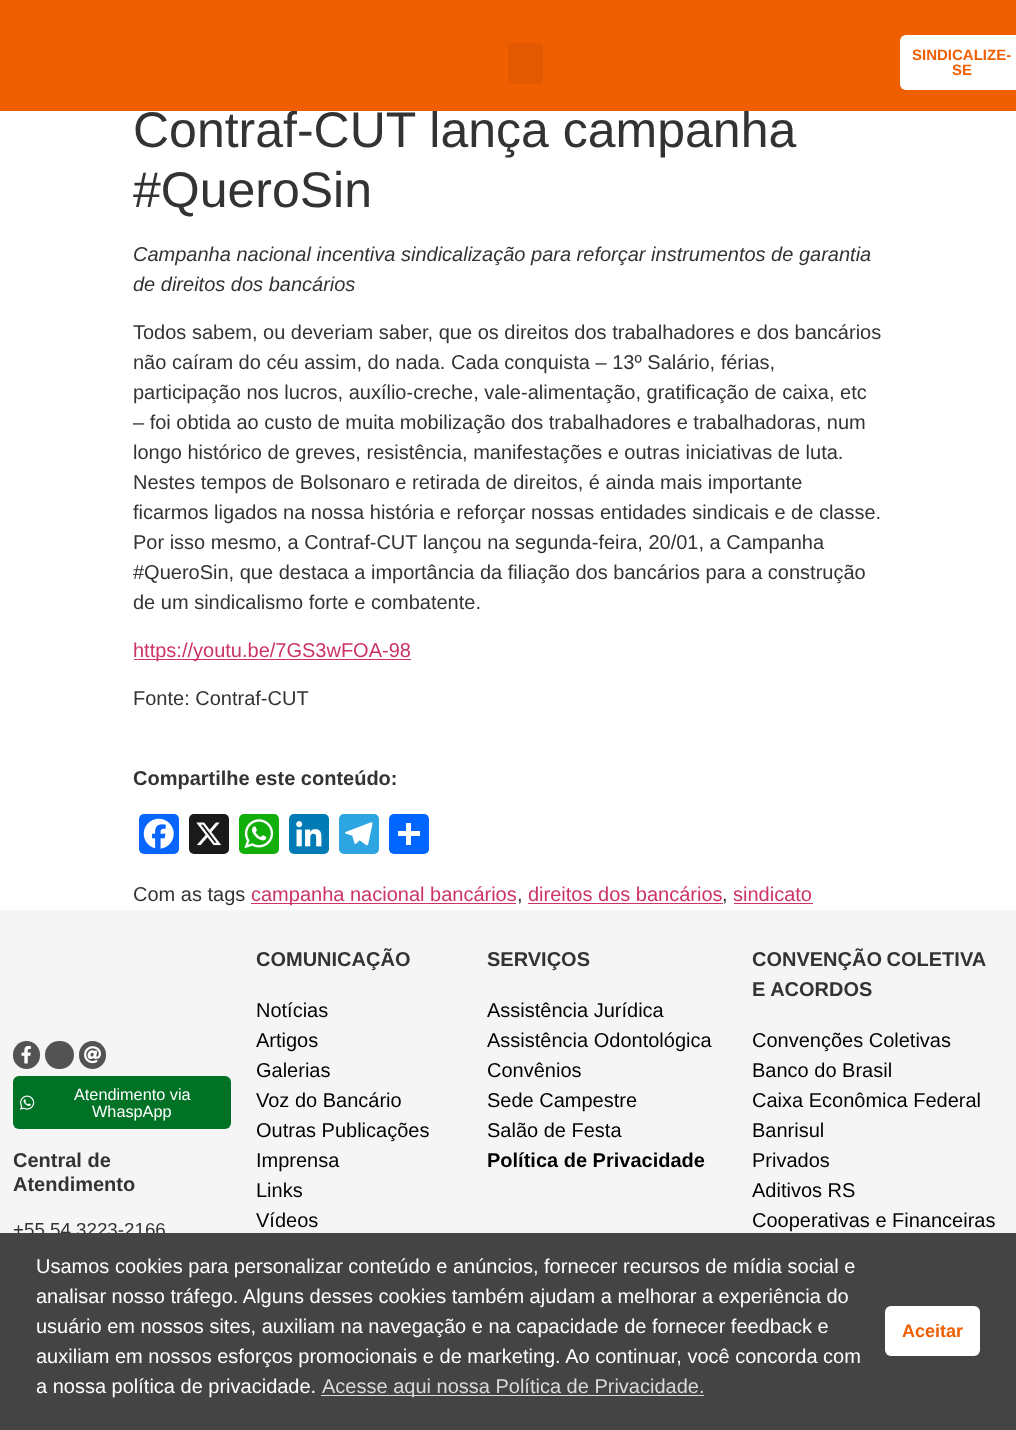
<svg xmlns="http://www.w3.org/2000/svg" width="1016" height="1430">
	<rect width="100%" height="100%" fill="#FFFFFF" />
	<text x="133" y="147" font-family="Liberation Sans" font-size="50" fill="#333333">Contraf-CUT lança campanha</text>
	<rect x="0" y="0" width="1016" height="111" fill="#EF5E01" />
	<rect x="508" y="43" width="35" height="41" rx="4" fill="#E35901" />
	<rect x="900" y="35" width="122" height="55" rx="6" fill="#FFFFFF" />
	<g font-family="Liberation Sans" font-size="15" font-weight="700" fill="#EF5E01">
		<text x="912" y="60">SINDICALIZE-</text>
		<text x="952" y="75">SE</text>
	</g>
	<text x="133" y="207" font-family="Liberation Sans" font-size="50" fill="#333333">#QueroSin</text>
	<g font-family="Liberation Sans" font-size="20" font-style="italic" fill="#333333">
		<text x="133" y="261">Campanha nacional incentiva sindicalização para reforçar instrumentos de garantia</text>
		<text x="133" y="291">de direitos dos bancários</text>
	</g>
	<g font-family="Liberation Sans" font-size="20" fill="#333333">
		<text x="133" y="339">Todos sabem, ou deveriam saber, que os direitos dos trabalhadores e dos bancários</text>
		<text x="133" y="369">não caíram do céu assim, do nada. Cada conquista – 13º Salário, férias,</text>
		<text x="133" y="399">participação nos lucros, auxílio-creche, vale-alimentação, gratificação de caixa, etc</text>
		<text x="133" y="429">– foi obtida ao custo de muita mobilização dos trabalhadores e trabalhadoras, num</text>
		<text x="133" y="459">longo histórico de greves, resistência, manifestações e outras iniciativas de luta.</text>
		<text x="133" y="489">Nestes tempos de Bolsonaro e retirada de direitos, é ainda mais importante</text>
		<text x="133" y="519">ficarmos ligados na nossa história e reforçar nossas entidades sindicais e de classe.</text>
		<text x="133" y="549">Por isso mesmo, a Contraf-CUT lançou na segunda-feira, 20/01, a Campanha</text>
		<text x="133" y="579">#QueroSin, que destaca a importância da filiação dos bancários para a construção</text>
		<text x="133" y="609">de um sindicalismo forte e combatente.</text>
	</g>
	<rect x="134" y="659" width="277" height="1" fill="#CC3366" />
	<text x="133" y="657" font-family="Liberation Sans" font-size="20" fill="#CC3366">https://youtu.be/7GS3wFOA-98</text>
	<text x="133" y="705" font-family="Liberation Sans" font-size="20" fill="#333333">Fonte: Contraf-CUT</text>
	<text x="133" y="785" font-family="Liberation Sans" font-size="20" font-weight="700" fill="#333333">Compartilhe este conteúdo:</text>
	<rect x="139" y="814" width="40" height="40" rx="5" fill="#0866FF" />
	<image x="143" y="818" width="31" height="31" href="assets/img1.png" />
	<rect x="189" y="814" width="40" height="40" rx="5" fill="#1A1A1A" />
	<image x="196" y="822" width="26" height="24" href="assets/img2.png" />
	<rect x="239" y="814" width="40" height="40" rx="5" fill="#12AF0A" />
	<image x="244" y="819" width="30" height="30" href="assets/img3.png" />
	<rect x="289" y="814" width="40" height="40" rx="5" fill="#007BB5" />
	<image x="296" y="821" width="26" height="26" href="assets/img4.png" />
	<rect x="339" y="814" width="40" height="40" rx="5" fill="#2CA5E0" />
	<image x="345" y="822" width="28" height="24" href="assets/img5.png" />
	<rect x="389" y="814" width="40" height="40" rx="5" fill="#0166FF" />
	<rect x="406" y="823" width="5" height="22" fill="#FFFFFF" />
	<rect x="398" y="831" width="22" height="5" fill="#FFFFFF" />
	<text x="133" y="901" font-family="Liberation Sans" font-size="20" fill="#333333">Com as tags</text>
	<rect x="251" y="903" width="265" height="1" fill="#CC3366" />
	<text x="251" y="901" font-family="Liberation Sans" font-size="20" fill="#CC3366">campanha nacional bancários</text>
	<text x="517" y="901" font-family="Liberation Sans" font-size="20" fill="#333333">,</text>
	<text x="528" y="901" font-family="Liberation Sans" font-size="20" fill="#CC3366">direitos dos bancários</text>
	<text x="722" y="901" font-family="Liberation Sans" font-size="20" fill="#333333">,</text>
	<rect x="528" y="903" width="195" height="1" fill="#CC3366" />
	<rect x="734" y="903" width="79" height="1" fill="#CC3366" />
	<text x="733" y="901" font-family="Liberation Sans" font-size="20" fill="#CC3366">sindicato</text>
	<rect x="0" y="910" width="1016" height="323" fill="#F5F5F5" />
	<rect x="13" y="1041" width="27" height="28" rx="13.5" fill="#535353" />
	<image x="21" y="1045" width="10" height="19" href="assets/img6.png" />
	<rect x="45" y="1041" width="29" height="28" rx="14" fill="#535353" />
	<rect x="79" y="1041" width="27" height="28" rx="13.5" fill="#535353" />
	<image x="84" y="1046" width="17" height="18" href="assets/img7.png" />
	<rect x="13" y="1076" width="218" height="53" rx="6" fill="#007226" />
	<image x="20" y="1095" width="15" height="15" href="assets/img8.png" />
	<g font-family="Liberation Sans" font-size="16.25" fill="#FFFFFF">
		<text x="74" y="1100">Atendimento via</text>
		<text x="92" y="1117">WhaspApp</text>
	</g>
	<g font-family="Liberation Sans" font-size="20" font-weight="700" fill="#333333">
		<text x="13" y="1167">Central de</text>
		<text x="13" y="1191">Atendimento</text>
	</g>
	<text x="13" y="1236" font-family="Liberation Sans" font-size="18.75" fill="#333333">+55 54 3223-2166</text>
	<text x="256" y="966" font-family="Liberation Sans" font-size="20" font-weight="700" fill="#333333">COMUNICAÇÃO</text>
	<g font-family="Liberation Sans" font-size="20" fill="#000000">
		<text x="256" y="1017">Notícias</text>
		<text x="256" y="1047">Artigos</text>
		<text x="256" y="1077">Galerias</text>
		<text x="256" y="1107">Voz do Bancário</text>
		<text x="256" y="1137">Outras Publicações</text>
		<text x="256" y="1167">Imprensa</text>
		<text x="256" y="1197">Links</text>
		<text x="256" y="1227">Vídeos</text>
	</g>
	<text x="487" y="966" font-family="Liberation Sans" font-size="20" font-weight="700" fill="#333333">SERVIÇOS</text>
	<g font-family="Liberation Sans" font-size="20" fill="#000000">
		<text x="487" y="1017">Assistência Jurídica</text>
		<text x="487" y="1047">Assistência Odontológica</text>
		<text x="487" y="1077">Convênios</text>
		<text x="487" y="1107">Sede Campestre</text>
		<text x="487" y="1137">Salão de Festa</text>
	</g>
	<text x="487" y="1167" font-family="Liberation Sans" font-size="20" font-weight="700" fill="#000000">Política de Privacidade</text>
	<g font-family="Liberation Sans" font-size="20" font-weight="700" fill="#333333">
		<text x="752" y="966" word-spacing="-1">CONVENÇÃO COLETIVA</text>
		<text x="752" y="996">E ACORDOS</text>
	</g>
	<g font-family="Liberation Sans" font-size="20" fill="#000000">
		<text x="752" y="1047">Convenções Coletivas</text>
		<text x="752" y="1077">Banco do Brasil</text>
		<text x="752" y="1107">Caixa Econômica Federal</text>
		<text x="752" y="1137">Banrisul</text>
		<text x="752" y="1167">Privados</text>
		<text x="752" y="1197">Aditivos RS</text>
		<text x="752" y="1227">Cooperativas e Financeiras</text>
	</g>
	<rect x="0" y="1233" width="1016" height="197" fill="#444444" />
	<g font-family="Liberation Sans" font-size="20" fill="#FFFFFF">
		<text x="36" y="1273">Usamos cookies para personalizar conteúdo e anúncios, fornecer recursos de mídia social e</text>
		<text x="36" y="1303">analisar nosso tráfego. Alguns desses cookies também ajudam a melhorar a experiência do</text>
		<text x="36" y="1333">usuário em nossos sites, auxiliam na navegação e na capacidade de fornecer feedback e</text>
		<text x="36" y="1363">auxiliam em nossos esforços promocionais e de marketing. Ao continuar, você concorda com</text>
		<text x="36" y="1393">a nossa política de privacidade.</text>
	</g>
	<rect x="321" y="1395" width="383" height="1" fill="#DADADA" />
	<text x="322" y="1393" font-family="Liberation Sans" font-size="20" fill="#DADADA">Acesse aqui nossa Política de Privacidade.</text>
	<rect x="885" y="1306" width="95" height="50" rx="6" fill="#FFFFFF" />
	<text x="902" y="1337" font-family="Liberation Sans" font-size="18" font-weight="700" fill="#EF5E01">Aceitar</text>
</svg>
